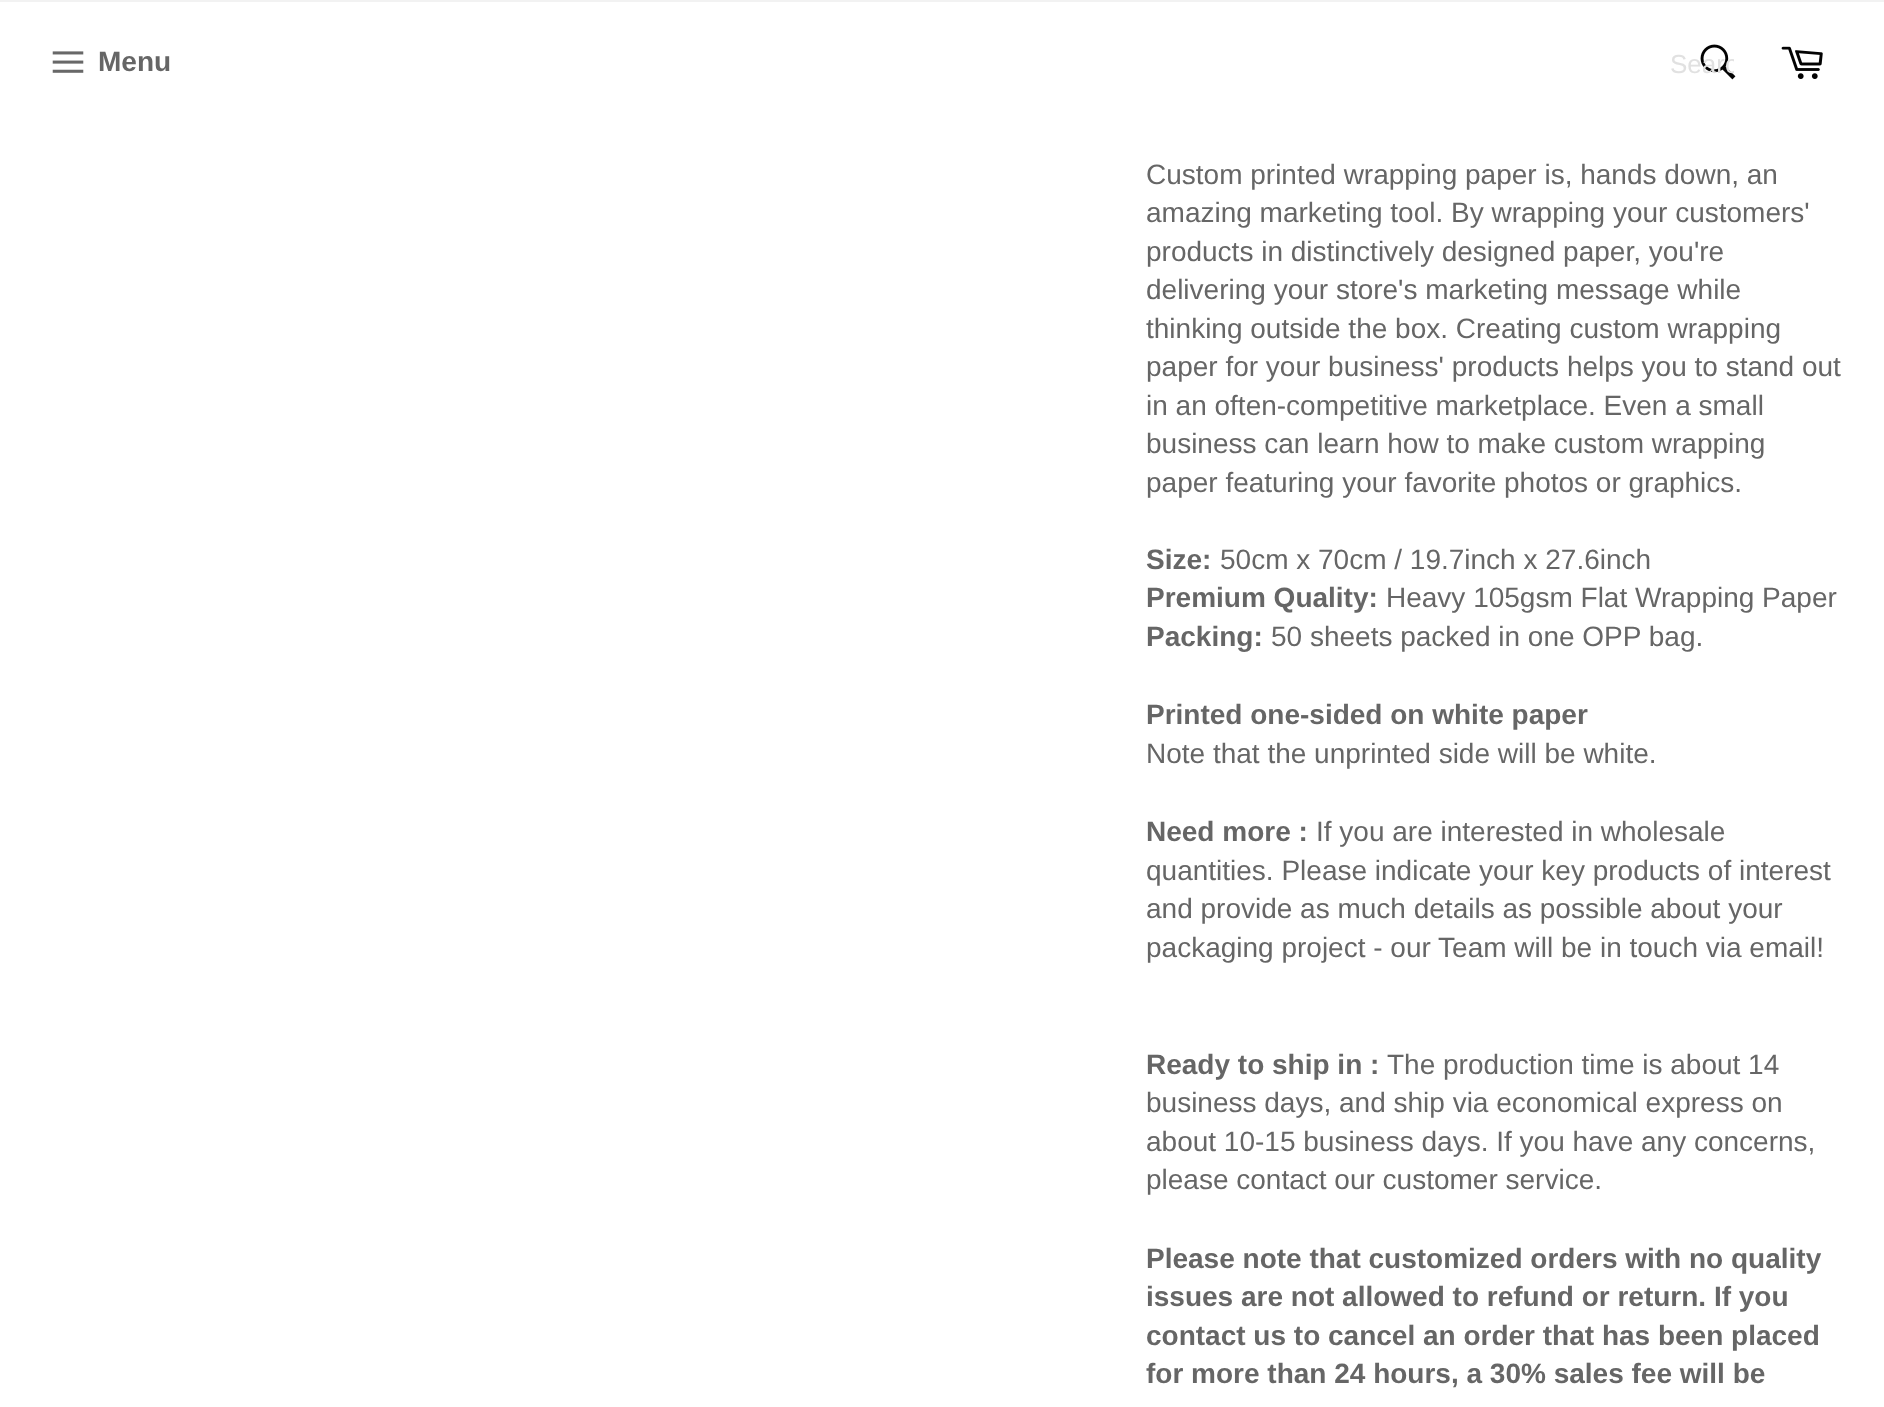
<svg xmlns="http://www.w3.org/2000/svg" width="1884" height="1407">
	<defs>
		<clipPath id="clip1"><rect x="1670" y="50" width="64" height="30" /></clipPath>
	</defs>
	<rect width="100%" height="100%" fill="#FFFFFF" />
	<rect x="0" y="0" width="1884" height="2" fill="#F2F2F2" />
	<image x="52" y="51" width="32" height="22" href="assets/img1.png" />
	<text x="98" y="71" font-family="Arimo" font-size="28" font-weight="700" fill="#666666">Menu</text>
	<image x="1700" y="44" width="36" height="36" href="assets/img2.png" />
	<g clip-path="url(#clip1)">
		<text x="1670" y="73" font-family="Arimo" font-size="26" fill="#E1E1E1">Searc</text>
	</g>
	<image x="1781" y="46" width="42" height="33" href="assets/img3.png" />
	<g font-family="Arimo" font-size="28" fill="#666666">
		<text x="1146" y="184">Custom printed wrapping paper is, hands down, an</text>
		<text x="1146" y="222">amazing marketing tool. By wrapping your customers'</text>
		<text x="1146" y="261">products in distinctively designed paper, you're</text>
		<text x="1146" y="299">delivering your store's marketing message while</text>
		<text x="1146" y="338">thinking outside the box. Creating custom wrapping</text>
		<text x="1146" y="376">paper for your business' products helps you to stand out</text>
		<text x="1146" y="415">in an often-competitive marketplace. Even a small</text>
		<text x="1146" y="453">business can learn how to make custom wrapping</text>
		<text x="1146" y="492">paper featuring your favorite photos or graphics.</text>
	</g>
	<text x="1146" y="569" font-family="Arimo" font-size="28" font-weight="700" fill="#666666">Size:</text>
	<text x="1220" y="569" font-family="Arimo" font-size="28" fill="#666666">50cm x 70cm / 19.7inch x 27.6inch</text>
	<text x="1146" y="607" font-family="Arimo" font-size="28" font-weight="700" fill="#666666">Premium Quality:</text>
	<text x="1386" y="607" font-family="Arimo" font-size="28" fill="#666666">Heavy 105gsm Flat Wrapping Paper</text>
	<text x="1146" y="646" font-family="Arimo" font-size="28" font-weight="700" fill="#666666">Packing:</text>
	<text x="1271" y="646" font-family="Arimo" font-size="28" fill="#666666">50 sheets packed in one OPP bag.</text>
	<text x="1146" y="724" font-family="Arimo" font-size="28" font-weight="700" fill="#666666">Printed one-sided on white paper</text>
	<text x="1146" y="763" font-family="Arimo" font-size="28" fill="#666666">Note that the unprinted side will be white.</text>
	<text x="1146" y="841" font-family="Arimo" font-size="28" font-weight="700" fill="#666666">Need more :</text>
	<g font-family="Arimo" font-size="28" fill="#666666">
		<text x="1316" y="841">If you are interested in wholesale</text>
		<text x="1146" y="880">quantities. Please indicate your key products of interest</text>
		<text x="1146" y="918">and provide as much details as possible about your</text>
		<text x="1146" y="957">packaging project - our Team will be in touch via email!</text>
	</g>
	<text x="1146" y="1074" font-family="Arimo" font-size="28" font-weight="700" fill="#666666">Ready to ship in :</text>
	<g font-family="Arimo" font-size="28" fill="#666666">
		<text x="1387" y="1074">The production time is about 14</text>
		<text x="1146" y="1112">business days, and ship via economical express on</text>
		<text x="1146" y="1151">about 10-15 business days. If you have any concerns,</text>
		<text x="1146" y="1189">please contact our customer service.</text>
	</g>
	<g font-family="Arimo" font-size="28" font-weight="700" fill="#666666">
		<text x="1146" y="1268">Please note that customized orders with no quality</text>
		<text x="1146" y="1306">issues are not allowed to refund or return. If you</text>
		<text x="1146" y="1345">contact us to cancel an order that has been placed</text>
		<text x="1146" y="1383">for more than 24 hours, a 30% sales fee will be</text>
	</g>
</svg>
